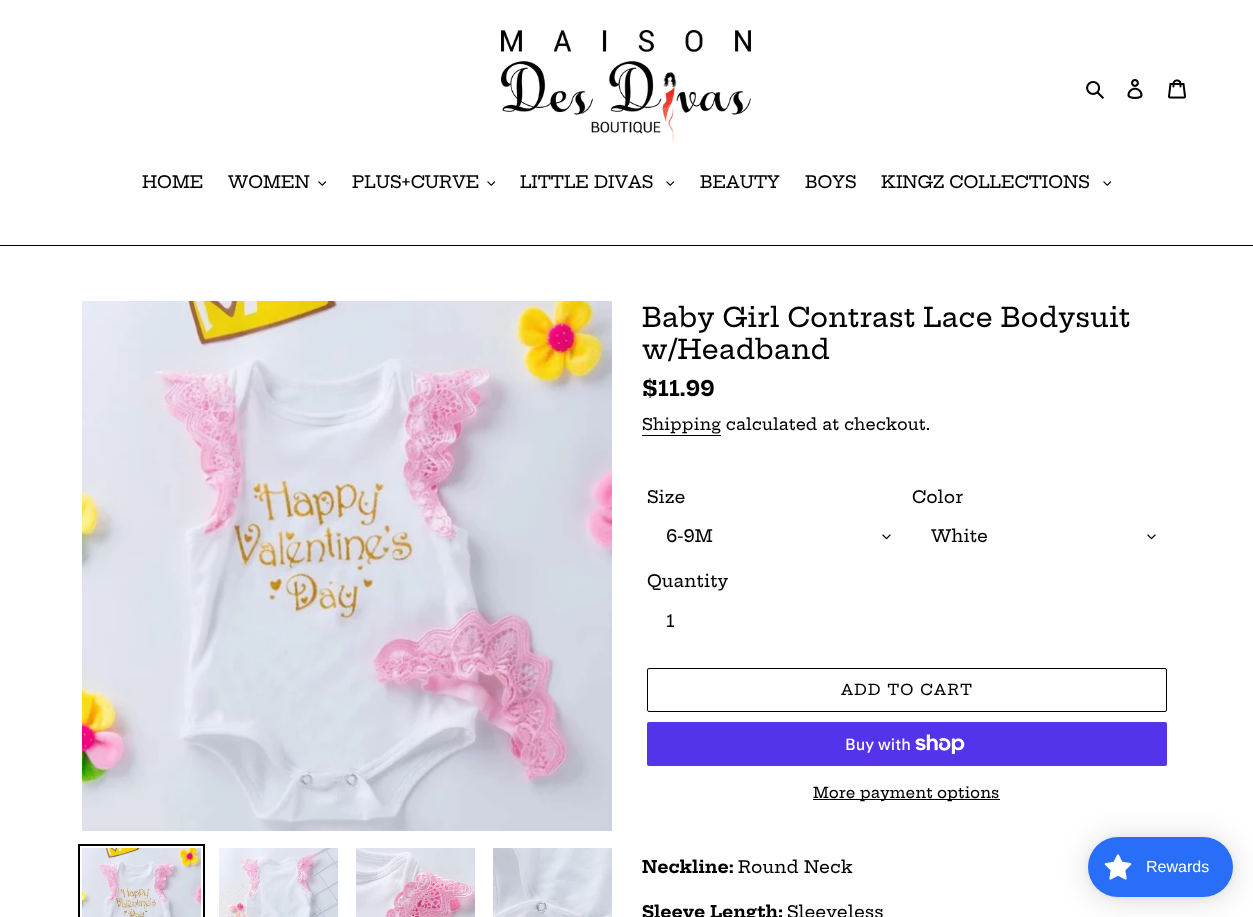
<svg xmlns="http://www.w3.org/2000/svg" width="1253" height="917">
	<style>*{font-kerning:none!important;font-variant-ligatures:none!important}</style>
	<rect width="100%" height="100%" fill="#FFFFFF" />
	<image x="501" y="30" width="250" height="112" href="assets/img1.png" />
	<image x="1086" y="81" width="18" height="18" href="assets/img2.png" />
	<image x="1127" y="79" width="16" height="20" href="assets/img3.png" />
	<image x="1168" y="79" width="18" height="20" href="assets/img4.png" />
	<rect x="0" y="245" width="1253" height="1" fill="#000000" />
	<g font-family="Hepta Slab" font-size="17" font-weight="500" fill="#000000">
		<text x="142" y="188">HOME</text>
		<text x="228" y="188">WOMEN</text>
	</g>
	<image x="318" y="181" width="8" height="5" href="assets/img5.png" />
	<text x="352" y="188" font-family="Hepta Slab" font-size="17" font-weight="500" fill="#000000">PLUS+CURVE</text>
	<image x="487" y="181" width="8" height="5" href="assets/img5.png" />
	<text x="520" y="188" font-family="Hepta Slab" font-size="17" font-weight="500" fill="#000000">LITTLE DIVAS</text>
	<image x="666" y="181" width="9" height="5" href="assets/img6.png" />
	<g font-family="Hepta Slab" font-size="17" font-weight="500" fill="#000000">
		<text x="700" y="188">BEAUTY</text>
		<text x="805" y="188">BOYS</text>
		<text x="881" y="188">KINGZ COLLECTIONS</text>
	</g>
	<image x="1103" y="181" width="8" height="5" href="assets/img5.png" />
	<image x="82" y="301" width="530" height="530" href="assets/img7.png" />
	<rect x="79" y="845" width="125" height="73" fill="none" stroke="#000000" stroke-width="2" />
	<image x="82" y="848" width="119" height="69" href="assets/img8.png" />
	<image x="219" y="848" width="119" height="69" href="assets/img9.png" />
	<image x="356" y="848" width="119" height="69" href="assets/img10.png" />
	<image x="493" y="848" width="119" height="69" href="assets/img11.png" />
	<g font-family="Hepta Slab" font-size="27" font-weight="500" fill="#000000">
		<text x="642" y="327">Baby Girl Contrast Lace Bodysuit</text>
		<text x="642" y="359">w/Headband</text>
	</g>
	<text x="642" y="396" font-family="Hepta Slab" font-size="21" font-weight="700" fill="#000000">$11.99</text>
	<text x="642" y="430" font-family="Hepta Slab" font-size="16" font-weight="500" fill="#000000">Shipping calculated at checkout.</text>
	<rect x="642" y="435" width="79" height="1" fill="#000000" />
	<text x="647" y="503" font-family="Hepta Slab" font-size="17" font-weight="500" fill="#000000">Size</text>
	<image x="882" y="534" width="9" height="6" href="assets/img12.png" />
	<g font-family="Hepta Slab" font-size="17" font-weight="500" fill="#000000">
		<text x="666" y="542">6-9M</text>
		<text x="912" y="503">Color</text>
	</g>
	<image x="1147" y="534" width="9" height="6" href="assets/img12.png" />
	<g font-family="Hepta Slab" font-size="17" font-weight="500" fill="#000000">
		<text x="931" y="542">White</text>
		<text x="647" y="587">Quantity</text>
		<text x="666" y="627">1</text>
	</g>
	<rect x="647.5" y="668.5" width="519" height="43" rx="1.5" fill="none" stroke="#000000" />
	<text x="841" y="695" font-family="Hepta Slab" font-size="15" font-weight="500" letter-spacing="1.25" fill="#000000">ADD TO CART</text>
	<rect x="647" y="722" width="520" height="44" rx="2" fill="#5433EB" />
	<text x="845" y="750" font-family="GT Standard" font-size="16" font-weight="500" fill="#FFFFFF">Buy with</text>
	<image x="915" y="734" width="50" height="20" href="assets/img13.png" />
	<rect x="813" y="799" width="187" height="1" fill="#000000" />
	<text x="813" y="798" font-family="Hepta Slab" font-size="15" font-weight="500" fill="#000000">More payment options</text>
	<text x="642" y="873" font-family="Hepta Slab" font-size="17" font-weight="700" fill="#000000">Neckline:</text>
	<text x="738" y="873" font-family="Hepta Slab" font-size="17" font-weight="500" fill="#000000">Round Neck</text>
	<text x="642" y="918" font-family="Hepta Slab" font-size="17" font-weight="700" fill="#000000">Sleeve Length:</text>
	<text x="787" y="918" font-family="Hepta Slab" font-size="17" font-weight="500" fill="#000000">Sleeveless</text>
	<rect x="1088" y="839" width="145" height="60" rx="30" fill="#000000" fill-opacity="0.15" filter="blur(15px)" />
	<rect x="1088" y="838" width="145" height="60" rx="30" fill="#000000" fill-opacity="0.05" filter="blur(3px)" />
	<rect x="1088" y="837" width="145" height="60" rx="30" fill="#286EF8" />
	<image x="1104" y="854" width="28" height="26" href="assets/img14.png" />
	<text x="1146" y="872" font-family="Liberation Sans" font-size="16" fill="#FFFFFF">Rewards</text>
</svg>
